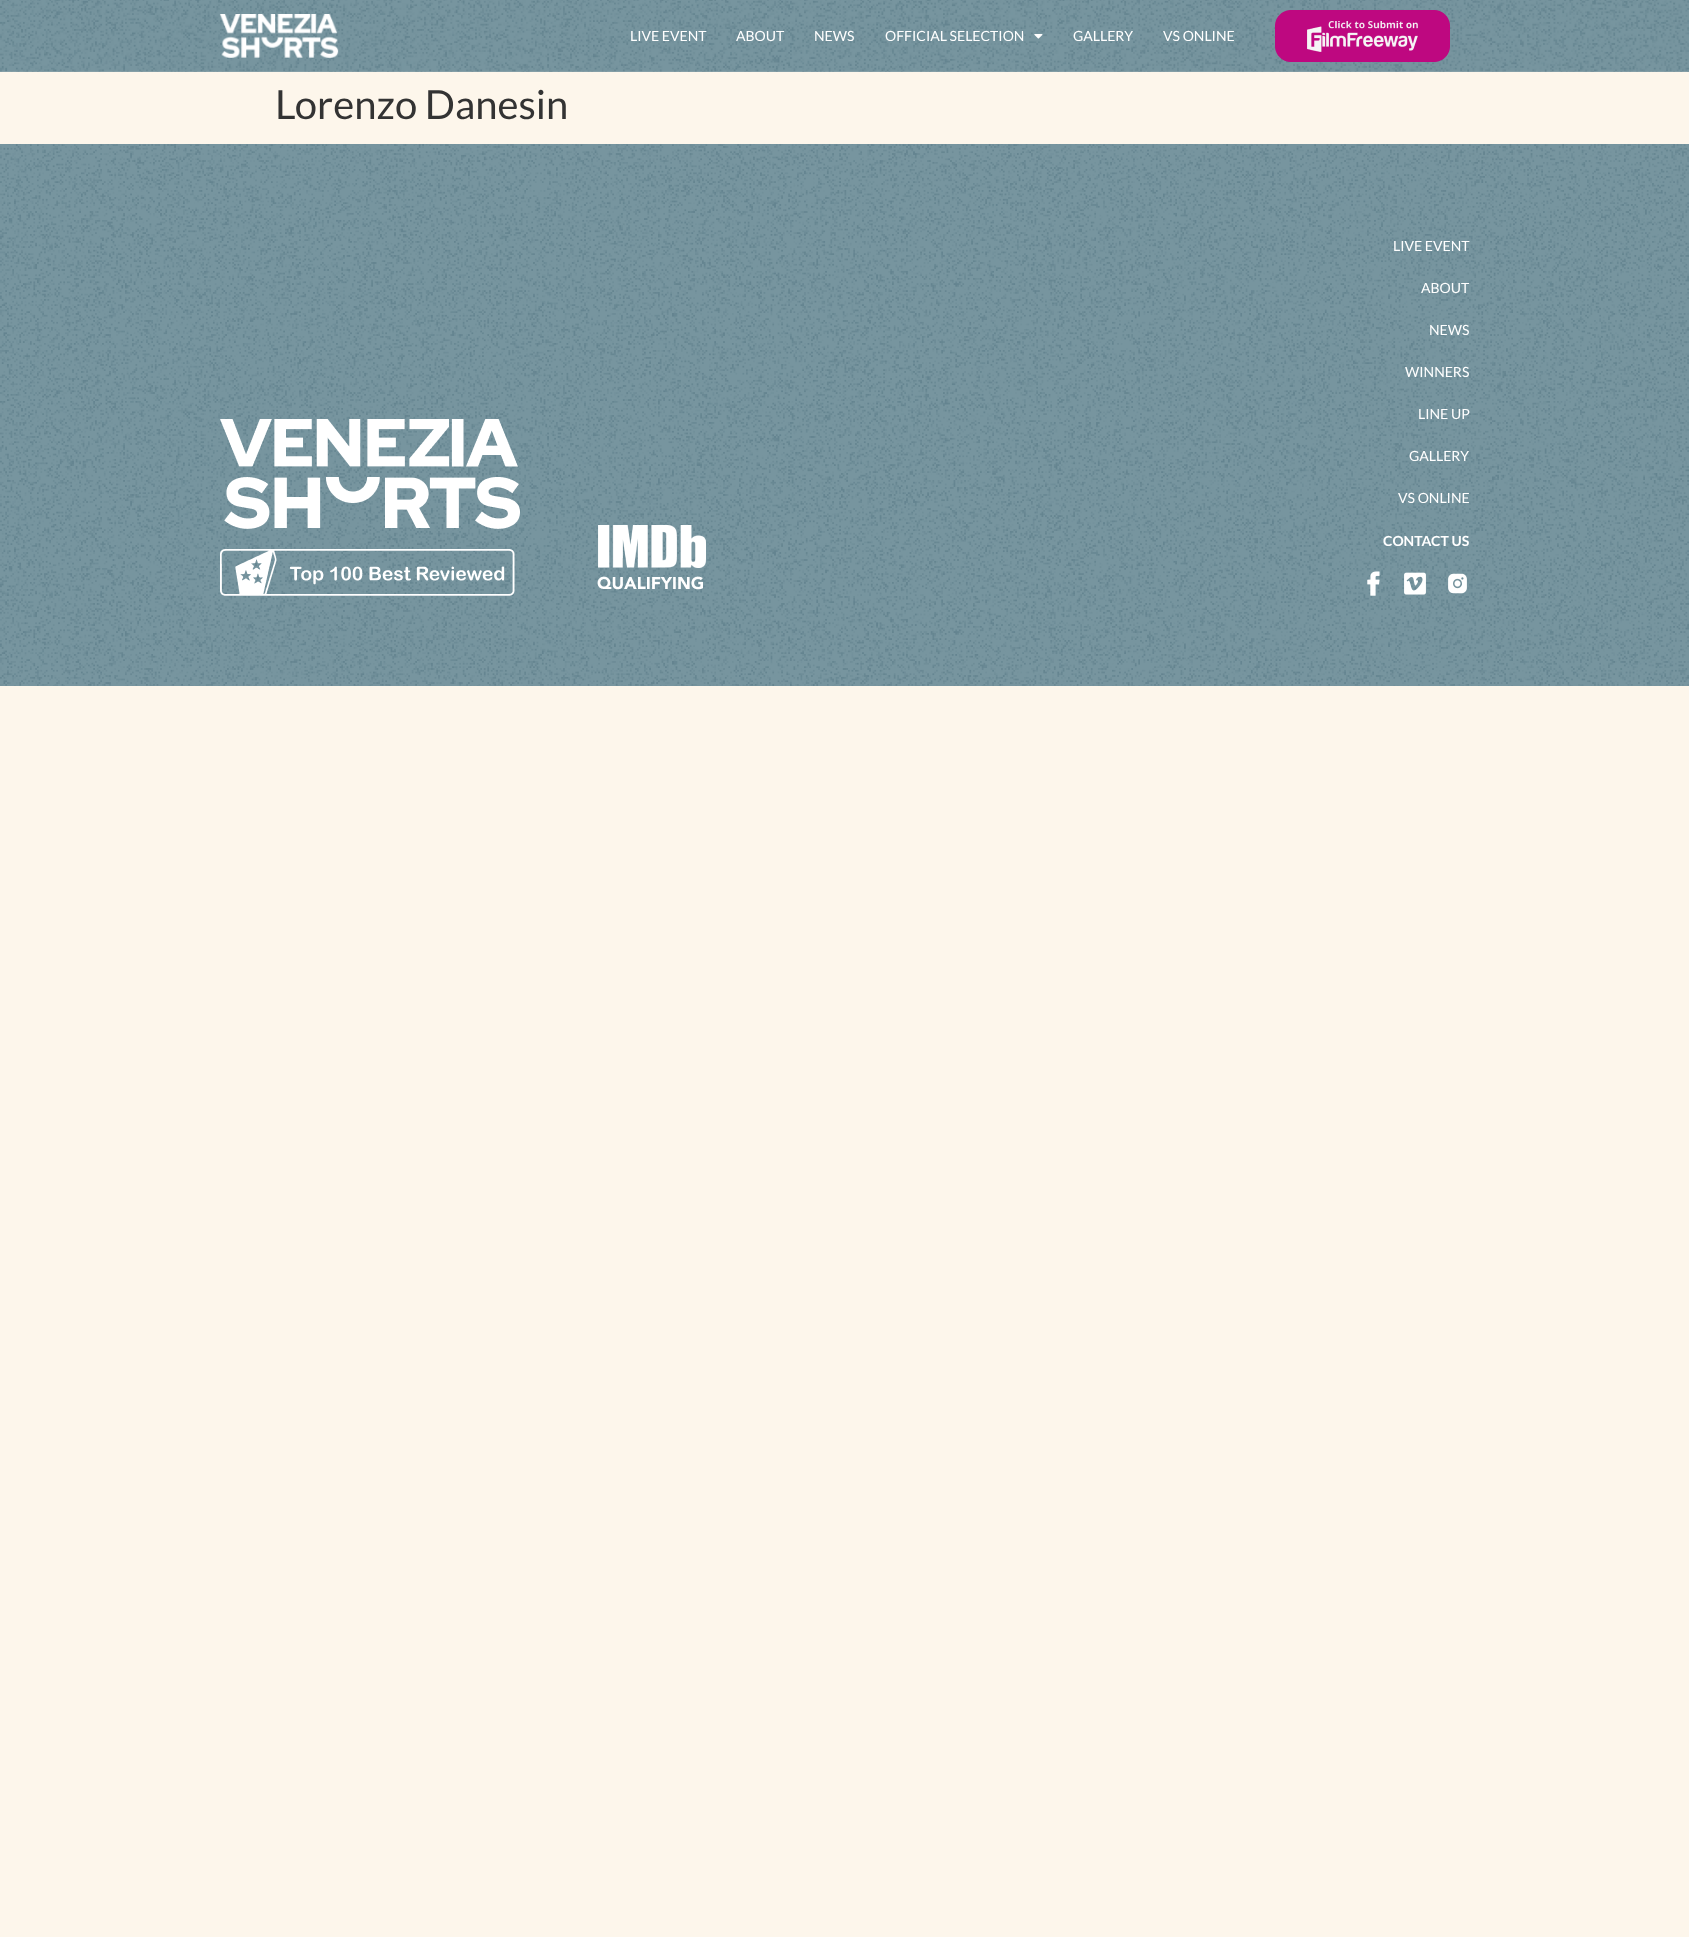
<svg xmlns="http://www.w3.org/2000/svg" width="1689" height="1937">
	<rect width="100%" height="100%" fill="#FDF6EB" />
	<image x="0" y="0" width="1689" height="72" href="assets/img1.png" />
	<image x="219" y="14" width="120" height="44" href="assets/img2.png" />
	<g font-family="Lato" font-size="14" fill="#FFFFFF">
		<text x="630" y="41">LIVE EVENT</text>
		<text x="736" y="41">ABOUT</text>
		<text x="814" y="41">NEWS</text>
		<text x="885" y="41">OFFICIAL SELECTION</text>
	</g>
	<image x="1034" y="34" width="9" height="5" href="assets/img3.png" />
	<g font-family="Lato" font-size="14" fill="#FFFFFF">
		<text x="1073" y="41">GALLERY</text>
		<text x="1163" y="41">VS ONLINE</text>
	</g>
	<image x="1275" y="10" width="175" height="52" href="assets/img4.png" />
	<text x="275" y="119" font-family="Lato" font-size="40" fill="#333333">Lorenzo Danesin</text>
	<image x="0" y="144" width="1689" height="542" href="assets/img5.png" />
	<image x="220" y="419" width="300" height="110" href="assets/img6.png" />
	<image x="220" y="549" width="295" height="47" href="assets/img7.png" />
	<image x="597" y="525" width="109" height="65" href="assets/img8.png" />
	<g font-family="Lato" font-size="14" fill="#FFFFFF">
		<text x="1393" y="251">LIVE EVENT</text>
		<text x="1421" y="293">ABOUT</text>
		<text x="1429" y="335">NEWS</text>
		<text x="1405" y="377">WINNERS</text>
		<text x="1418" y="419">LINE UP</text>
		<text x="1409" y="461">GALLERY</text>
		<text x="1398" y="503">VS ONLINE</text>
	</g>
	<text x="1383" y="546" font-family="Lato" font-size="14" font-weight="700" fill="#FFFFFF">CONTACT US</text>
	<image x="1367" y="571" width="13" height="25" href="assets/img9.png" />
	<image x="1404" y="572" width="22" height="23" href="assets/img10.png" />
	<image x="1448" y="573" width="19" height="21" href="assets/img11.png" />
</svg>
